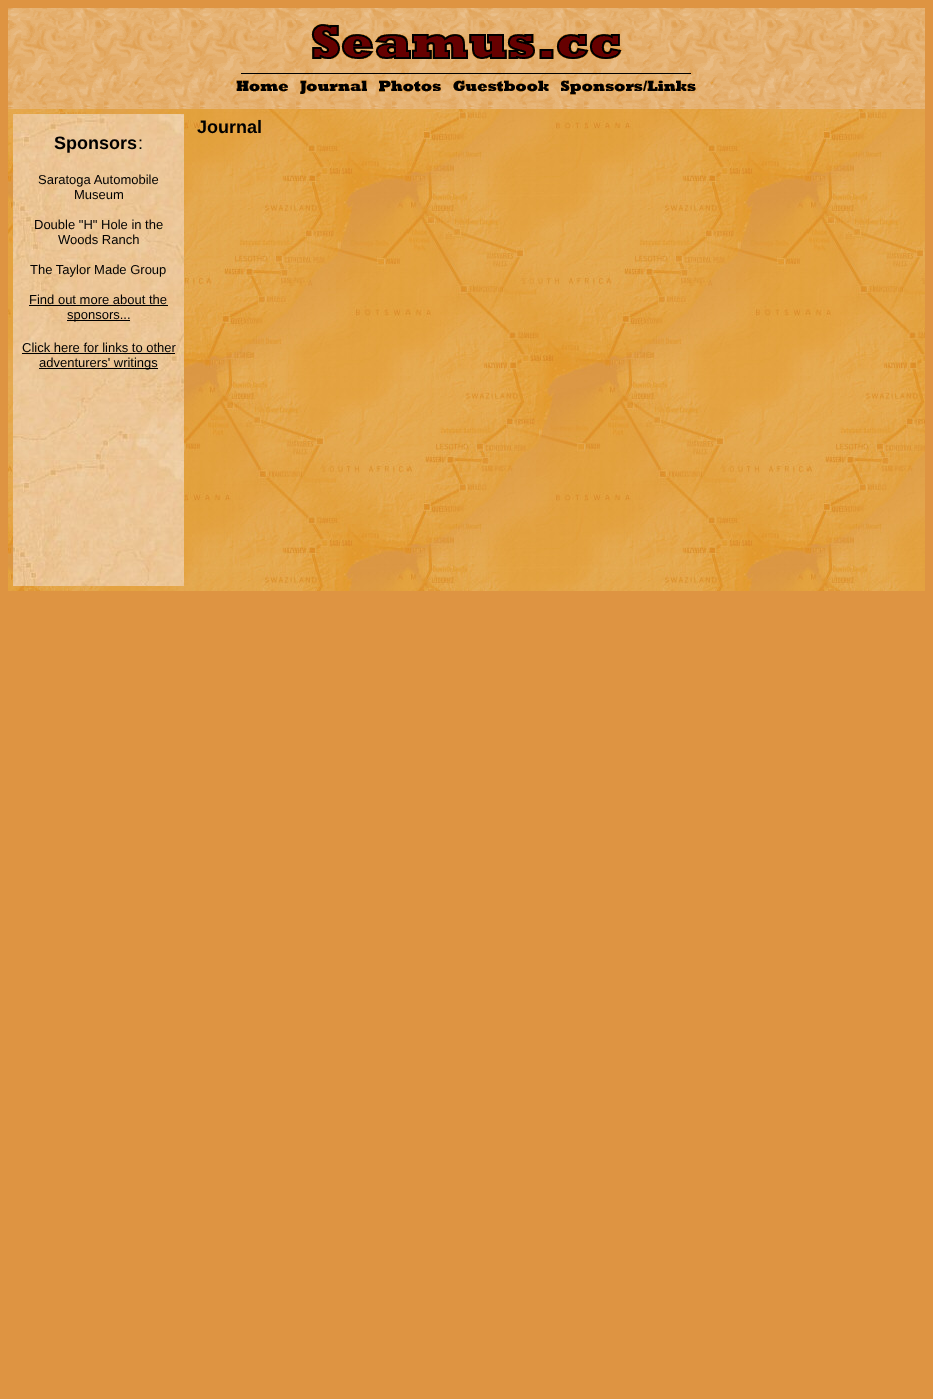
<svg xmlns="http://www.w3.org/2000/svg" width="933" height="1399">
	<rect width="100%" height="100%" fill="#DE9442" />
	<image x="8" y="82" width="917" height="509" href="assets/img1.png" />
	<image x="8" y="8" width="917" height="101" href="assets/img2.png" />
	<image x="241" y="24" width="450" height="50" href="assets/img3.png" />
	<image x="236" y="80" width="52" height="12" href="assets/img4.png" />
	<image x="300" y="80" width="67" height="14" href="assets/img5.png" />
	<image x="379" y="80" width="62" height="12" href="assets/img6.png" />
	<image x="453" y="80" width="96" height="12" href="assets/img7.png" />
	<image x="561" y="80" width="135" height="15" href="assets/img8.png" />
	<text x="197" y="133" font-family="Liberation Sans" font-size="18" font-weight="700" fill="#000000">Journal</text>
	<image x="13" y="114" width="171" height="472" href="assets/img9.png" />
	<text x="54" y="149" font-family="Liberation Sans" font-size="18" font-weight="700" fill="#000000">Sponsors</text>
	<text x="138" y="149" font-family="Liberation Sans" font-size="18" fill="#000000">:</text>
	<g font-family="Liberation Sans" font-size="13" fill="#000000">
		<text x="38" y="184">Saratoga Automobile</text>
		<text x="74" y="199">Museum</text>
		<text x="34" y="229">Double "H" Hole in the</text>
		<text x="58" y="244">Woods Ranch</text>
		<text x="30" y="274">The Taylor Made Group</text>
		<text x="29" y="304">Find out more about the</text>
	</g>
	<rect x="29" y="305" width="139" height="1" fill="#000000" />
	<rect x="67" y="320" width="63" height="1" fill="#000000" />
	<g font-family="Liberation Sans" font-size="13" fill="#000000">
		<text x="67" y="319">sponsors...</text>
		<text x="22" y="352">Click here for links to other</text>
	</g>
	<rect x="22" y="353" width="153" height="1" fill="#000000" />
	<rect x="39" y="368" width="119" height="1" fill="#000000" />
	<text x="39" y="367" font-family="Liberation Sans" font-size="13" fill="#000000">adventurers' writings</text>
</svg>
